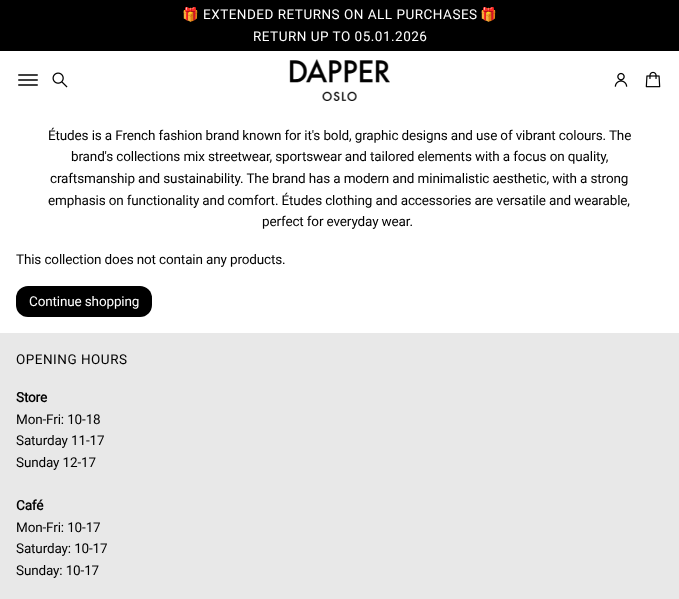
<svg xmlns="http://www.w3.org/2000/svg" width="679" height="599">
	<rect width="100%" height="100%" fill="#FFFFFF" />
	<rect x="0" y="0" width="679" height="51" fill="#000000" />
	<text x="182" y="19" font-family="Noto Color Emoji" font-size="13.5" letter-spacing="0.5" fill="#FFFFFF">🎁</text>
	<text x="203" y="19" font-family="Roboto" font-size="13.5" letter-spacing="0.5" fill="#FFFFFF">EXTENDED RETURNS ON ALL PURCHASES</text>
	<text x="480" y="19" font-family="Noto Color Emoji" font-size="13.5" letter-spacing="0.5" fill="#FFFFFF">🎁</text>
	<text x="253" y="41" font-family="Roboto" font-size="13.5" letter-spacing="0.5" fill="#FFFFFF">RETURN UP TO 05.01.2026</text>
	<image x="18" y="74" width="20" height="12" href="assets/img1.png" />
	<image x="52" y="72" width="16" height="16" href="assets/img2.png" />
	<image x="289" y="59" width="101" height="42" href="assets/img3.png" />
	<image x="614" y="72" width="14" height="15" href="assets/img4.png" />
	<image x="645" y="71" width="16" height="17" href="assets/img5.png" />
	<g font-family="Roboto" font-size="13.5" letter-spacing="-0.14" fill="#000000">
		<text x="48" y="140">Études is a French fashion brand known for it's bold, graphic designs and use of vibrant colours. The</text>
		<text x="71" y="161">brand's collections mix streetwear, sportswear and tailored elements with a focus on quality,</text>
		<text x="50" y="183">craftsmanship and sustainability. The brand has a modern and minimalistic aesthetic, with a strong</text>
		<text x="48" y="205">emphasis on functionality and comfort. Études clothing and accessories are versatile and wearable,</text>
		<text x="262" y="226">perfect for everyday wear.</text>
		<text x="16" y="264">This collection does not contain any products.</text>
	</g>
	<rect x="16" y="286" width="136" height="31" rx="12" fill="#000000" />
	<text x="29" y="306" font-family="Roboto" font-size="13.5" letter-spacing="-0.14" fill="#FFFFFF">Continue shopping</text>
	<rect x="0" y="333" width="679" height="266" fill="#E8E8E8" />
	<text x="16" y="364" font-family="Roboto" font-size="13.5" letter-spacing="0.5" fill="#000000">OPENING HOURS</text>
	<text x="16" y="402" font-family="Roboto" font-size="13.5" font-weight="700" letter-spacing="-0.14" fill="#000000">Store</text>
	<g font-family="Roboto" font-size="13.5" letter-spacing="-0.14" fill="#000000">
		<text x="16" y="424">Mon-Fri: 10-18</text>
		<text x="16" y="445">Saturday 11-17</text>
		<text x="16" y="467">Sunday 12-17</text>
	</g>
	<text x="16" y="510" font-family="Roboto" font-size="13.5" font-weight="700" letter-spacing="-0.14" fill="#000000">Café</text>
	<g font-family="Roboto" font-size="13.5" letter-spacing="-0.14" fill="#000000">
		<text x="16" y="532">Mon-Fri: 10-17</text>
		<text x="16" y="553">Saturday: 10-17</text>
		<text x="16" y="575">Sunday: 10-17</text>
	</g>
</svg>
